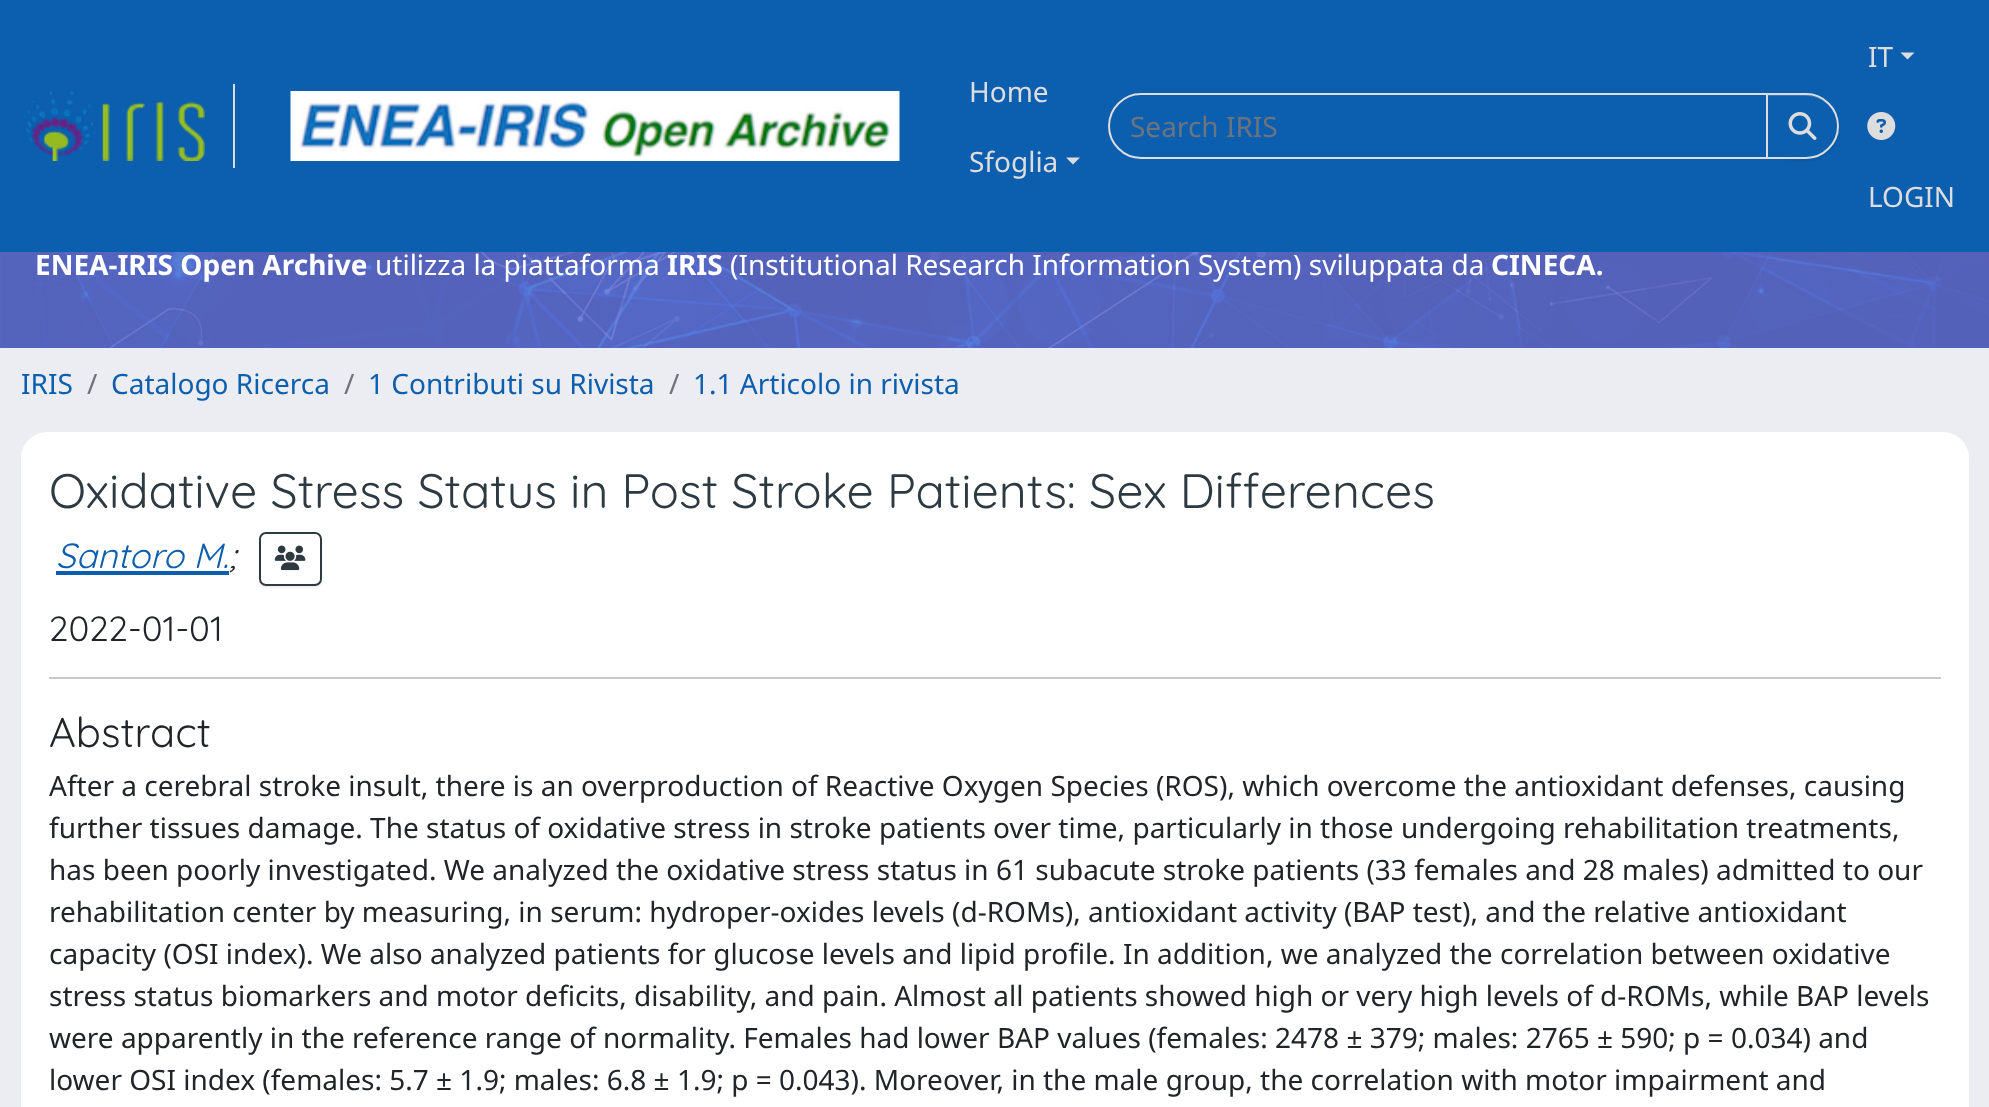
<svg xmlns="http://www.w3.org/2000/svg" width="1989" height="1107">
	<defs>
		<clipPath id="clip1"><path d="M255 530H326V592H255ZM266 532H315C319 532 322 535 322 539V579C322 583 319 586 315 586H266C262 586 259 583 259 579V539C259 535 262 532 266 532Z" clip-rule="evenodd" /></clipPath>
	</defs>
	<rect width="100%" height="100%" fill="#ECEDF2" />
	<rect x="0" y="0" width="1989" height="252" fill="#0C5EAE" />
	<rect x="233" y="84" width="2" height="84" fill="#DDDDDD" />
	<image x="23" y="91" width="182" height="70" href="assets/img1.png" />
	<image x="290" y="91" width="610" height="70" href="assets/img2.png" />
	<g font-family="Noto Sans" font-size="28" fill="#DDDDDD">
		<text x="969" y="102">Home</text>
		<text x="969" y="172">Sfoglia</text>
	</g>
	<path d="M1066 157.5H1080L1073 164.5Z" fill="#DDDDDD" />
	<path d="M1141 94H1767V158H1141C1123.5 158 1109 143.5 1109 126C1109 108.5 1123.5 94 1141 94Z" fill="none" stroke="#DDDDDD" stroke-width="2" />
	<text x="1130" y="137" font-family="Noto Sans" font-size="28" fill="#6C757D">Search IRIS</text>
	<rect x="1766" y="95" width="73" height="66" rx="33" fill="#000000" fill-opacity="0.07" filter="blur(1px)" />
	<path d="M1766 93H1806C1824 93 1839 108 1839 126C1839 144 1824 159 1806 159H1766Z" fill="#0C5EAE" />
	<path d="M1768 96H1806C1823 96 1838 110 1838 127V126C1838 109 1824 95 1806 95H1768Z" fill="#3076BA" />
	<path d="M1767 94H1806C1823.5 94 1838 108.5 1838 126C1838 143.5 1823.5 158 1806 158H1767Z" fill="none" stroke="#DDDDDD" stroke-width="2" />
	<image x="1788" y="112" width="29" height="28" href="assets/img3.png" />
	<text x="1868" y="67" font-family="Noto Sans" font-size="28" fill="#DDDDDD">IT</text>
	<path d="M1900.5 52.5H1914.5L1907.5 59.5Z" fill="#DDDDDD" />
	<image x="1867" y="112" width="29" height="28" href="assets/img4.png" />
	<text x="1868" y="207" font-family="Noto Sans" font-size="28" fill="#DDDDDD">LOGIN</text>
	<image x="0" y="252" width="1989" height="96" href="assets/img5.png" />
	<text x="35" y="275" font-family="Noto Sans" font-size="28" font-weight="700" fill="#FFFFFF">ENEA-IRIS Open Archive</text>
	<text x="375" y="275" font-family="Noto Sans" font-size="28" fill="#FFFFFF">utilizza la piattaforma</text>
	<text x="667" y="275" font-family="Noto Sans" font-size="28" font-weight="700" fill="#FFFFFF">IRIS</text>
	<text x="730" y="275" font-family="Noto Sans" font-size="28" fill="#FFFFFF">(Institutional Research Information System) sviluppata da</text>
	<text x="1491" y="275" font-family="Noto Sans" font-size="28" font-weight="700" fill="#FFFFFF">CINECA.</text>
	<text x="21" y="394" font-family="Noto Sans" font-size="28" fill="#0C5EAE">IRIS</text>
	<text x="87" y="394" font-family="Noto Sans" font-size="28" fill="#6C757D">/</text>
	<text x="111" y="394" font-family="Noto Sans" font-size="28" fill="#0C5EAE">Catalogo Ricerca</text>
	<text x="344" y="394" font-family="Noto Sans" font-size="28" fill="#6C757D">/</text>
	<text x="368" y="394" font-family="Noto Sans" font-size="28" fill="#0C5EAE">1 Contributi su Rivista</text>
	<text x="669" y="394" font-family="Noto Sans" font-size="28" fill="#6C757D">/</text>
	<text x="693" y="394" font-family="Noto Sans" font-size="28" fill="#0C5EAE">1.1 Articolo in rivista</text>
	<rect x="21" y="432" width="1948" height="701" rx="26" fill="#FFFFFF" />
	<text x="49" y="508" font-family="Quicksand" font-size="48.35" font-weight="300" fill="#2D3A42">Oxidative Stress Status in Post Stroke Patients: Sex Differences</text>
	<text x="56" y="568" font-family="Quicksand" font-size="35" font-weight="300" font-style="italic" fill="#0C5EAE">Santoro M.</text>
	<text x="229" y="568" font-family="Quicksand" font-size="35" font-weight="300" font-style="italic" fill="#212529">;</text>
	<rect x="56" y="571" width="173" height="4" fill="#0C5EAE" />
	<g clip-path="url(#clip1)">
		<rect x="259" y="534" width="63" height="54" rx="7" fill="#000000" fill-opacity="0.07" filter="blur(1px)" />
	</g>
	<rect x="260" y="533" width="61" height="52" rx="6" fill="none" stroke="#2D3A42" stroke-width="2" />
	<image x="274" y="545" width="32" height="26" href="assets/img6.png" />
	<text x="49" y="641" font-family="Quicksand" font-size="35" font-weight="300" fill="#212529">2022-01-01</text>
	<rect x="49" y="677" width="1892" height="2" fill="#C8C9CA" />
	<text x="49" y="747" font-family="Quicksand" font-size="41.5" font-weight="300" fill="#212529">Abstract</text>
	<g font-family="Noto Sans" font-size="28" fill="#212529">
		<text x="49" y="796">After a cerebral stroke insult, there is an overproduction of Reactive Oxygen Species (ROS), which overcome the antioxidant defenses, causing</text>
		<text x="49" y="838">further tissues damage. The status of oxidative stress in stroke patients over time, particularly in those undergoing rehabilitation treatments,</text>
		<text x="49" y="880">has been poorly investigated. We analyzed the oxidative stress status in 61 subacute stroke patients (33 females and 28 males) admitted to our</text>
		<text x="49" y="922">rehabilitation center by measuring, in serum: hydroper-oxides levels (d-ROMs), antioxidant activity (BAP test), and the relative antioxidant</text>
		<text x="49" y="964">capacity (OSI index). We also analyzed patients for glucose levels and lipid profile. In addition, we analyzed the correlation between oxidative</text>
		<text x="49" y="1006">stress status biomarkers and motor deficits, disability, and pain. Almost all patients showed high or very high levels of d-ROMs, while BAP levels</text>
		<text x="49" y="1048">were apparently in the reference range of normality. Females had lower BAP values (females: 2478 ± 379; males: 2765 ± 590; p = 0.034) and</text>
		<text x="49" y="1090">lower OSI index (females: 5.7 ± 1.9; males: 6.8 ± 1.9; p = 0.043). Moreover, in the male group, the correlation with motor impairment and</text>
	</g>
</svg>
